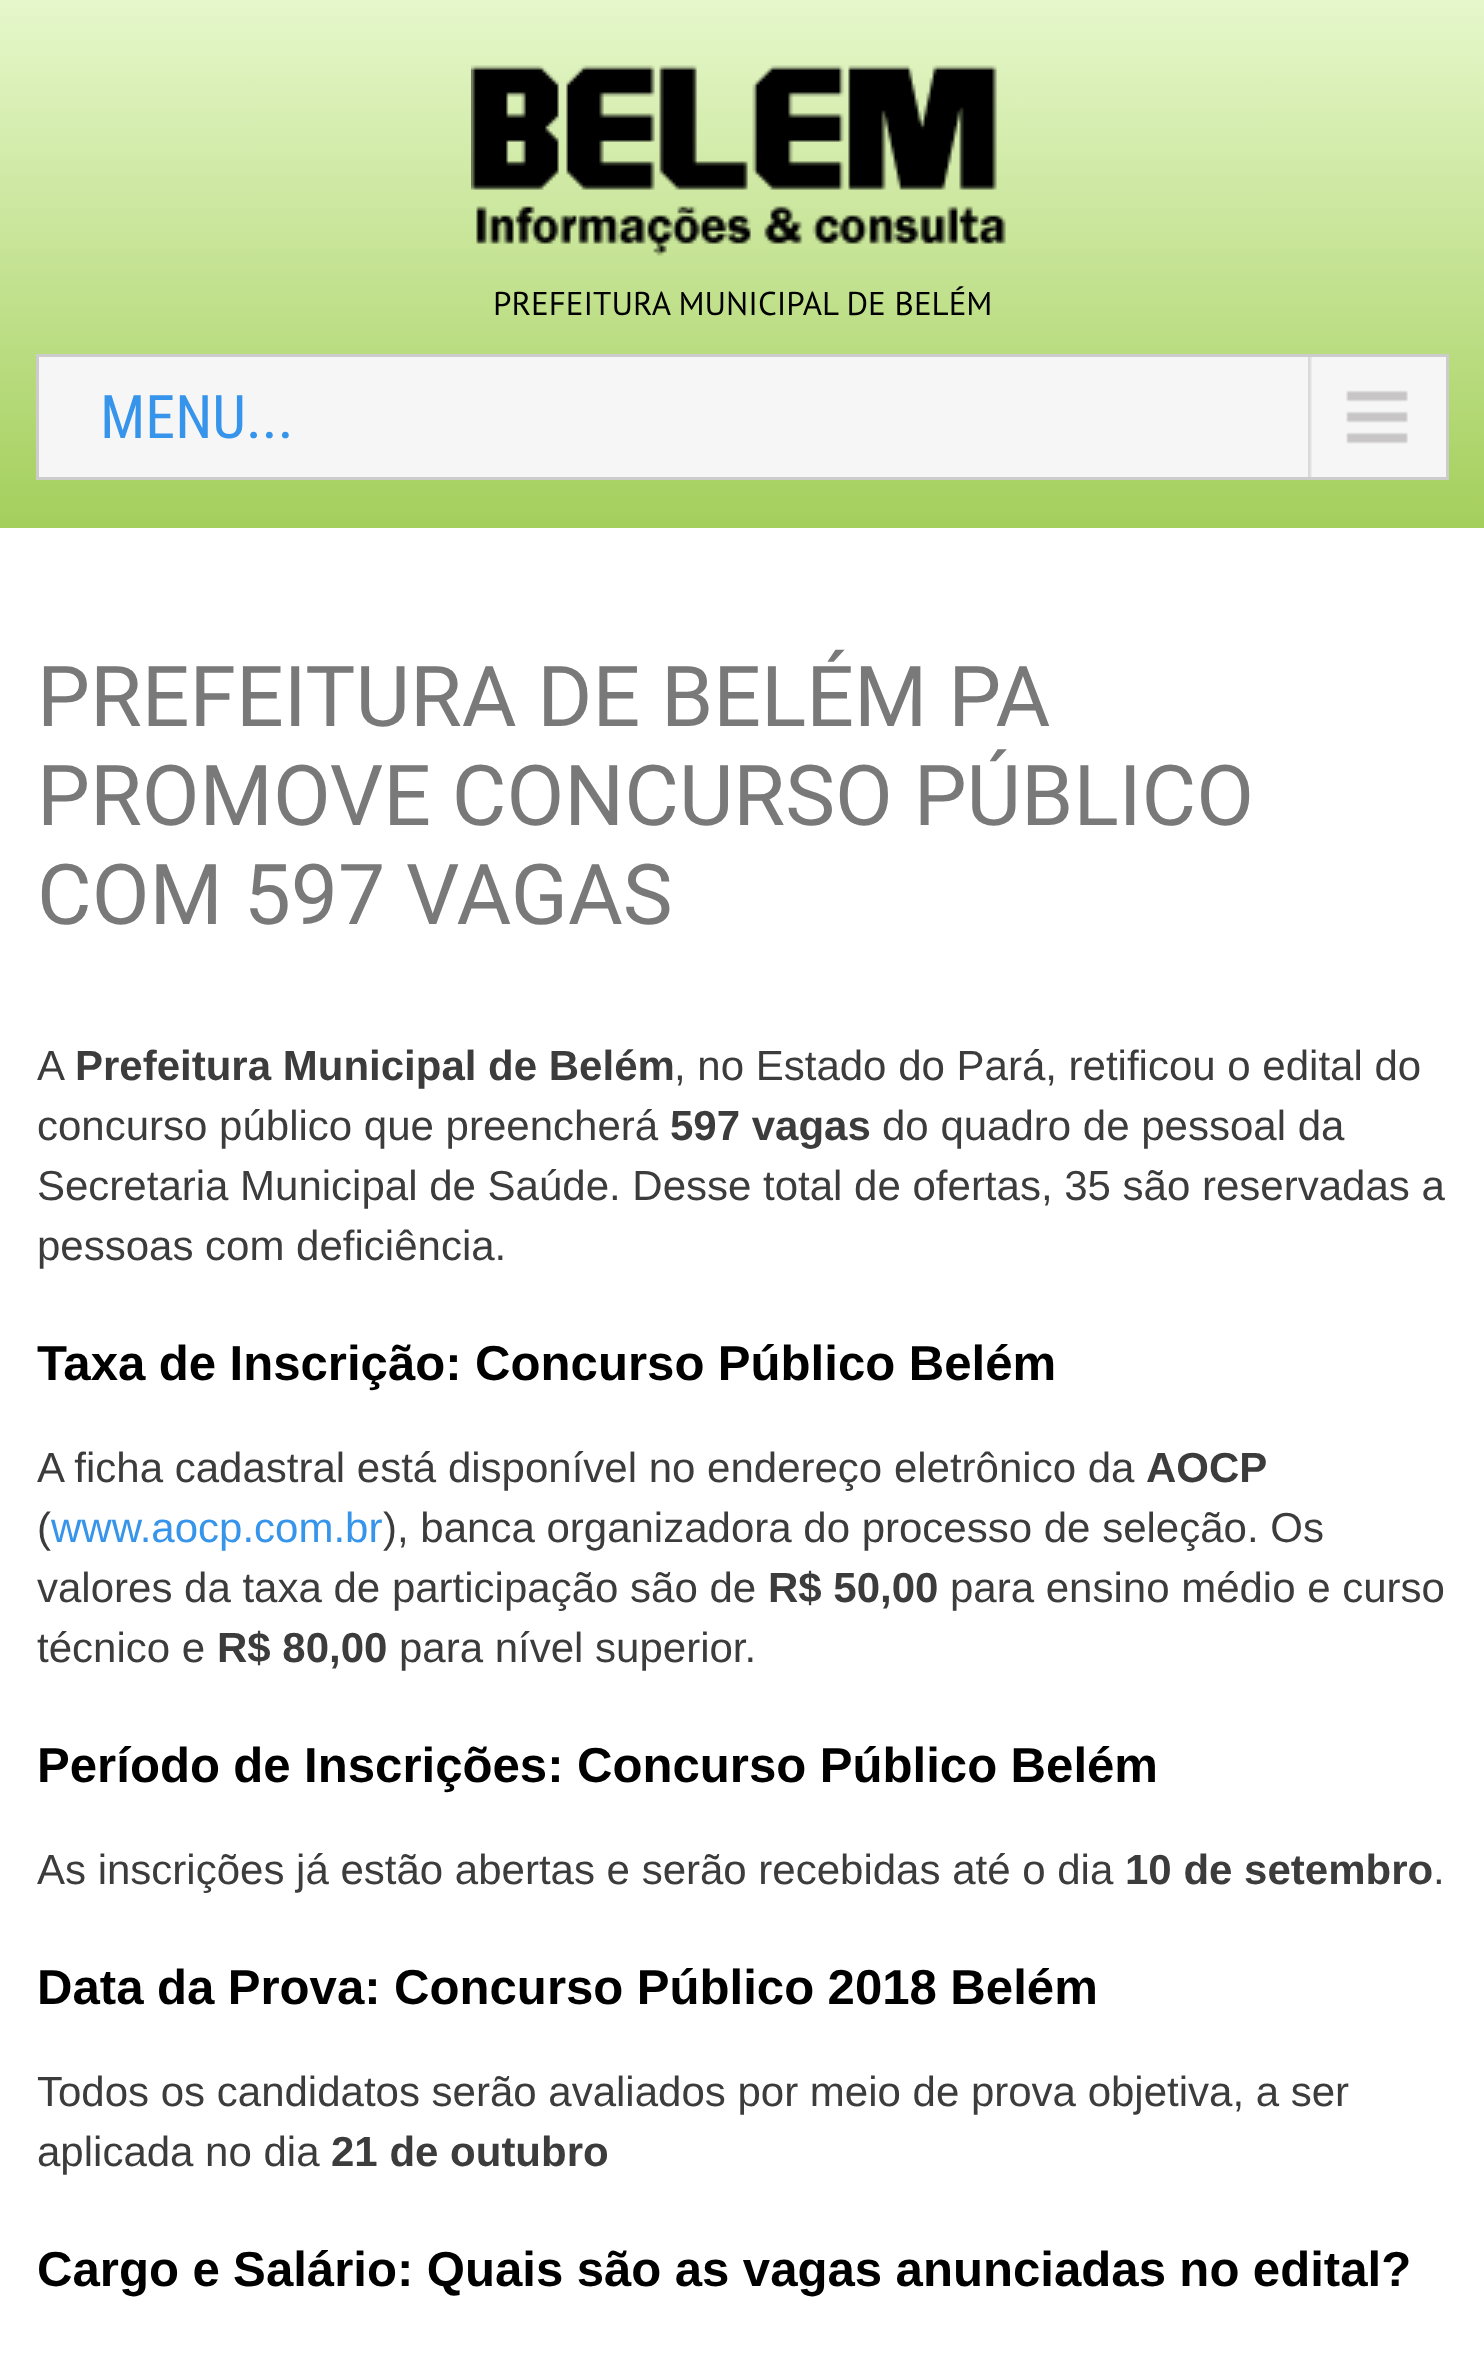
<svg xmlns="http://www.w3.org/2000/svg" width="1484" height="2371">
	<defs>
		<linearGradient id="g1" gradientUnits="userSpaceOnUse" x1="743" y1="0" x2="743" y2="528"><stop offset="0" stop-color="#E6F7CB" /><stop offset="1" stop-color="#A4CF5C" /></linearGradient>
	</defs>
	<rect width="100%" height="100%" fill="#FFFFFF" />
	<rect x="0" y="0" width="1484" height="528" fill="url(#g1)" />
	<image x="471" y="65" width="535" height="191" href="assets/img1.png" />
	<text x="493" y="315" font-family="PT Sans" font-size="33" fill="#000000">PREFEITURA MUNICIPAL DE BELÉM</text>
	<rect x="39" y="357" width="1407" height="120" fill="#F6F6F6" />
	<image x="1308" y="357" width="100" height="120" href="assets/img2.png" />
	<rect x="37.5" y="355.5" width="1410" height="123" fill="none" stroke="#CCCCCC" stroke-width="3" />
	<text x="100" y="438" font-family="Roboto Condensed" font-size="60" fill="#3695EB">MENU...</text>
	<g font-family="Roboto" font-size="84" fill="#797979">
		<text x="37" y="726">PREFEITURA DE BELÉM PA</text>
		<text x="37" y="825">PROMOVE CONCURSO PÚBLICO</text>
		<text x="37" y="924">COM 597 VAGAS</text>
	</g>
	<text x="37" y="1080" font-family="Liberation Sans" font-size="42" fill="#3C3C3C">A</text>
	<text x="75" y="1080" font-family="Liberation Sans" font-size="42" font-weight="700" fill="#3C3C3C">Prefeitura Municipal de Belém</text>
	<g font-family="Liberation Sans" font-size="42" fill="#3C3C3C">
		<text x="674" y="1080">, no Estado do Pará, retificou o edital do</text>
		<text x="37" y="1140">concurso público que preencherá</text>
	</g>
	<text x="670" y="1140" font-family="Liberation Sans" font-size="42" font-weight="700" fill="#3C3C3C">597 vagas</text>
	<g font-family="Liberation Sans" font-size="42" fill="#3C3C3C">
		<text x="882" y="1140">do quadro de pessoal da</text>
		<text x="37" y="1200">Secretaria Municipal de Saúde. Desse total de ofertas, 35 são reservadas a</text>
		<text x="37" y="1260">pessoas com deficiência.</text>
	</g>
	<text x="37" y="1380" word-spacing="-0.25" font-family="Liberation Sans" font-size="49.15" font-weight="700" fill="#000000">Taxa de Inscrição: Concurso Público Belém</text>
	<text x="37" y="1482" font-family="Liberation Sans" font-size="42" fill="#3C3C3C">A ficha cadastral está disponível no endereço eletrônico da</text>
	<text x="1146" y="1482" font-family="Liberation Sans" font-size="42" font-weight="700" fill="#3C3C3C">AOCP</text>
	<text x="37" y="1542" font-family="Liberation Sans" font-size="42" fill="#3C3C3C">(</text>
	<text x="51" y="1542" font-family="Liberation Sans" font-size="42" fill="#3695EB">www.aocp.com.br</text>
	<g font-family="Liberation Sans" font-size="42" fill="#3C3C3C">
		<text x="383" y="1542">), banca organizadora do processo de seleção. Os</text>
		<text x="37" y="1602">valores da taxa de participação são de</text>
	</g>
	<text x="768" y="1602" font-family="Liberation Sans" font-size="42" font-weight="700" fill="#3C3C3C">R$ 50,00</text>
	<g font-family="Liberation Sans" font-size="42" fill="#3C3C3C">
		<text x="950" y="1602">para ensino médio e curso</text>
		<text x="37" y="1662">técnico e</text>
	</g>
	<text x="217" y="1662" font-family="Liberation Sans" font-size="42" font-weight="700" fill="#3C3C3C">R$ 80,00</text>
	<text x="399" y="1662" font-family="Liberation Sans" font-size="42" fill="#3C3C3C">para nível superior.</text>
	<text x="37" y="1782" word-spacing="-0.25" font-family="Liberation Sans" font-size="49.15" font-weight="700" fill="#000000">Período de Inscrições: Concurso Público Belém</text>
	<text x="37" y="1884" font-family="Liberation Sans" font-size="42" fill="#3C3C3C">As inscrições já estão abertas e serão recebidas até o dia</text>
	<text x="1125" y="1884" font-family="Liberation Sans" font-size="42" font-weight="700" fill="#3C3C3C">10 de setembro</text>
	<text x="1433" y="1884" font-family="Liberation Sans" font-size="42" fill="#3C3C3C">.</text>
	<text x="37" y="2004" word-spacing="-0.25" font-family="Liberation Sans" font-size="49.15" font-weight="700" fill="#000000">Data da Prova: Concurso Público 2018 Belém</text>
	<g font-family="Liberation Sans" font-size="42" fill="#3C3C3C">
		<text x="37" y="2106">Todos os candidatos serão avaliados por meio de prova objetiva, a ser</text>
		<text x="37" y="2166">aplicada no dia</text>
	</g>
	<text x="331" y="2166" font-family="Liberation Sans" font-size="42" font-weight="700" fill="#3C3C3C">21 de outubro</text>
	<text x="37" y="2286" word-spacing="-0.25" font-family="Liberation Sans" font-size="49.15" font-weight="700" fill="#000000">Cargo e Salário: Quais são as vagas anunciadas no edital?</text>
</svg>
